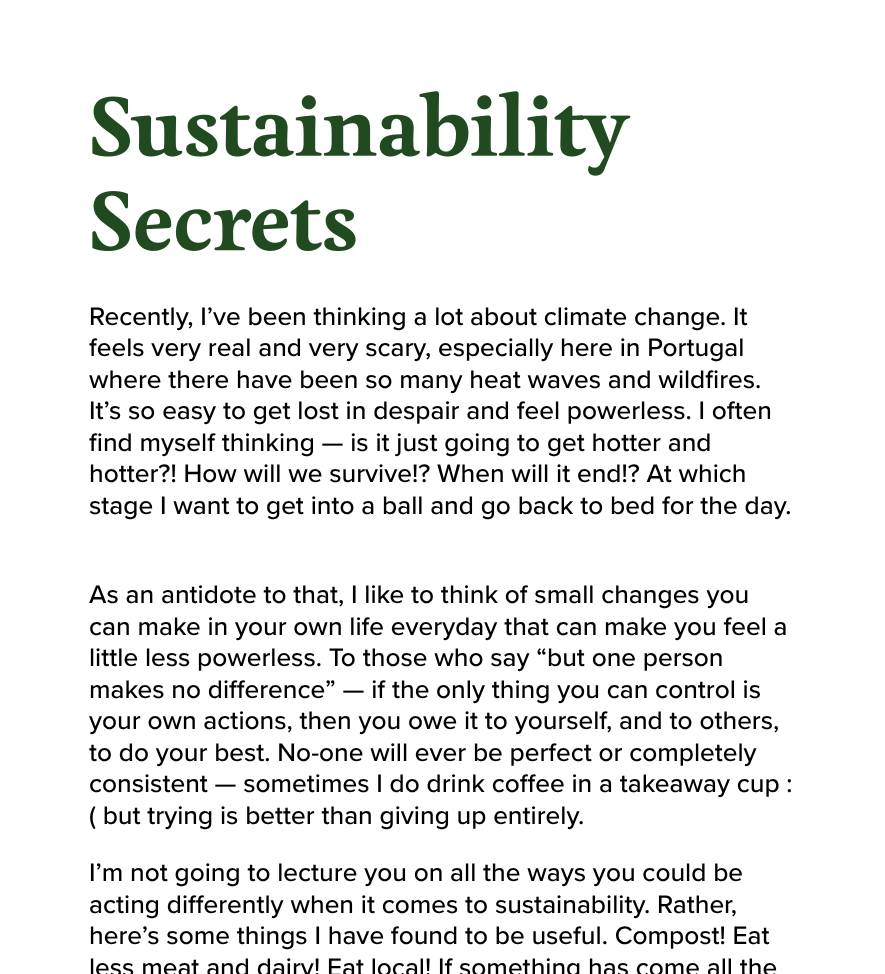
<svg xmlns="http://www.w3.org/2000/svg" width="885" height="974">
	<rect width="100%" height="100%" fill="#FFFFFF" />
	<image x="92" y="91" width="539" height="85" href="assets/img1.png" />
	<image x="92" y="191" width="264" height="60" href="assets/img2.png" />
	<g font-family="Proxima Nova" font-size="26.25" font-weight="500" fill="#000000">
		<text x="89" y="325">Recently, I’ve been thinking a lot about climate change. It</text>
		<text x="89" y="356">feels very real and very scary, especially here in Portugal</text>
		<text x="89" y="388">where there have been so many heat waves and wildfires.</text>
		<text x="89" y="419">It’s so easy to get lost in despair and feel powerless. I often</text>
		<text x="89" y="451">find myself thinking — is it just going to get hotter and</text>
		<text x="89" y="482">hotter?! How will we survive!? When will it end!? At which</text>
		<text x="89" y="514">stage I want to get into a ball and go back to bed for the day.</text>
		<text x="89" y="603">As an antidote to that, I like to think of small changes you</text>
		<text x="89" y="635">can make in your own life everyday that can make you feel a</text>
		<text x="89" y="666">little less powerless. To those who say “but one person</text>
		<text x="89" y="698">makes no difference” — if the only thing you can control is</text>
		<text x="89" y="729">your own actions, then you owe it to yourself, and to others,</text>
		<text x="89" y="761">to do your best. No-one will ever be perfect or completely</text>
		<text x="89" y="792">consistent — sometimes I do drink coffee in a takeaway cup :</text>
		<text x="89" y="824">( but trying is better than giving up entirely.</text>
		<text x="89" y="881">I’m not going to lecture you on all the ways you could be</text>
		<text x="89" y="913">acting differently when it comes to sustainability. Rather,</text>
		<text x="89" y="944">here’s some things I have found to be useful. Compost! Eat</text>
		<text x="89" y="976">less meat and dairy! Eat local! If something has come all the</text>
	</g>
</svg>
